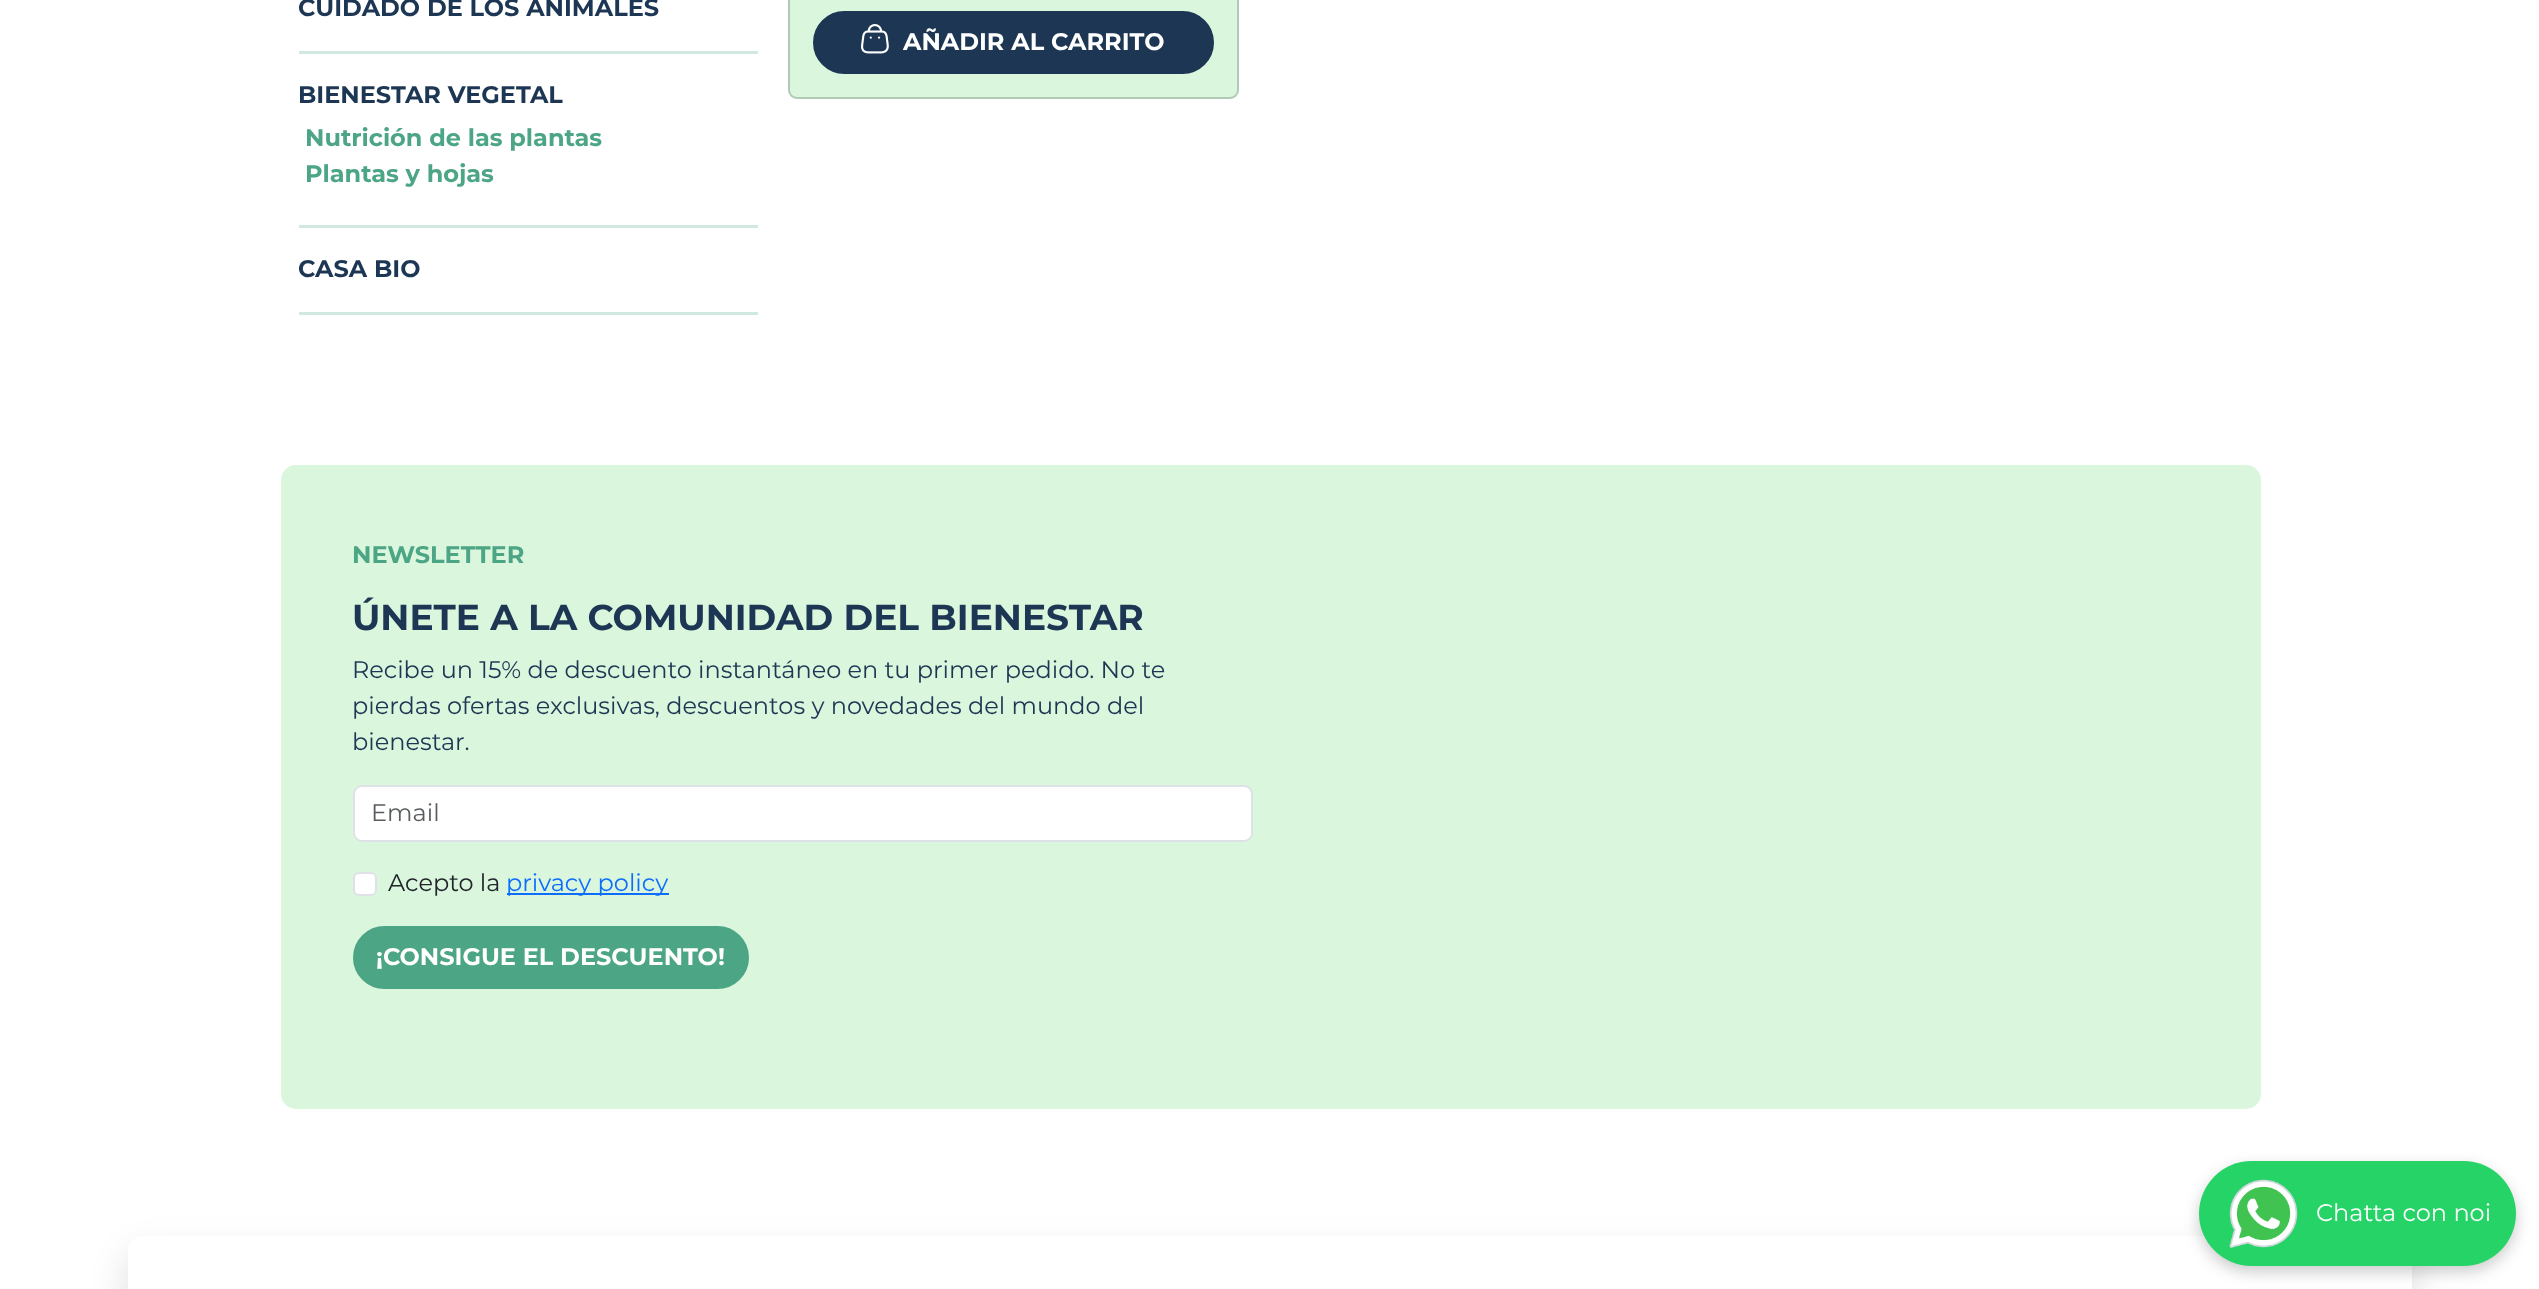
<svg xmlns="http://www.w3.org/2000/svg" width="2539" height="1289">
	<defs>
		<clipPath id="clip1"><path d="M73 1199H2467V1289H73ZM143 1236H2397C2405.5 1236 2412 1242.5 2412 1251V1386C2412 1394.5 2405.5 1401 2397 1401H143C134.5 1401 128 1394.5 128 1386V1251C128 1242.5 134.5 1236 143 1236Z" clip-rule="evenodd" /></clipPath>
	</defs>
	<rect width="100%" height="100%" fill="#FFFFFF" />
	<text x="298" y="16" font-family="Montserrat" font-size="24" font-weight="700" fill="#1D3653">CUIDADO DE LOS ANIMALES</text>
	<rect x="299" y="51" width="459" height="3" fill="#D2E9E1" />
	<text x="298" y="103" font-family="Montserrat" font-size="24" font-weight="700" fill="#1D3653">BIENESTAR VEGETAL</text>
	<g font-family="Montserrat" font-size="24" font-weight="700" fill="#4CA585">
		<text x="305" y="146">Nutrición de las plantas</text>
		<text x="305" y="182">Plantas y hojas</text>
	</g>
	<rect x="299" y="225" width="459" height="3" fill="#D2E9E1" />
	<text x="298" y="277" font-family="Montserrat" font-size="24" font-weight="700" fill="#1D3653">CASA BIO</text>
	<rect x="299" y="312" width="459" height="3" fill="#D2E9E1" />
	<rect x="788" y="-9" width="451" height="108" rx="9" fill="#DAF6DD" />
	<rect x="789" y="-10" width="449" height="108" rx="8" fill="none" stroke="#000000" stroke-opacity="0.18" stroke-width="2" />
	<rect x="814" y="12" width="399" height="61" rx="30.5" fill="#1D3653" stroke="#1D3653" stroke-width="2" />
	<image x="861" y="24" width="28" height="30" href="assets/img1.png" />
	<text x="903" y="50" font-family="Montserrat" font-size="24" font-weight="700" fill="#FFFFFF">AÑADIR AL CARRITO</text>
	<rect x="281" y="465" width="1980" height="644" rx="15" fill="#DAF6DD" />
	<text x="352" y="563" font-family="Montserrat" font-size="24" font-weight="700" fill="#4CA585">NEWSLETTER</text>
	<text x="352" y="630" font-family="Montserrat" font-size="36" font-weight="700" fill="#1D3653">ÚNETE A LA COMUNIDAD DEL BIENESTAR</text>
	<g font-family="Montserrat" font-size="24" fill="#1D3653">
		<text x="352" y="678">Recibe un 15% de descuento instantáneo en tu primer pedido. No te</text>
		<text x="352" y="714">pierdas ofertas exclusivas, descuentos y novedades del mundo del</text>
		<text x="352" y="750">bienestar.</text>
	</g>
	<rect x="354" y="786" width="898" height="55" rx="8" fill="#FFFFFF" stroke="#DEE2E6" stroke-width="2" />
	<text x="371" y="821" font-family="Montserrat" font-size="24" fill="#595C5F">Email</text>
	<rect x="354" y="873" width="22" height="22" rx="5" fill="#FFFFFF" stroke="#DEE2E6" stroke-width="2" />
	<text x="388" y="891" font-family="Montserrat" font-size="24" fill="#212529">Acepto la</text>
	<rect x="507" y="893" width="162" height="2" fill="#0D6EFD" />
	<text x="506" y="891" font-family="Montserrat" font-size="24" fill="#0D6EFD">privacy policy</text>
	<rect x="354" y="927" width="394" height="61" rx="30.5" fill="#4CA585" stroke="#4CA585" stroke-width="2" />
	<text x="376" y="965" font-family="Montserrat" font-size="24" font-weight="700" fill="#FFFFFF">¡CONSIGUE EL DESCUENTO!</text>
	<g clip-path="url(#clip1)">
		<rect x="125" y="1251" width="2290" height="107" rx="18" fill="#000000" fill-opacity="0.11" filter="blur(17px)" />
	</g>
	<rect x="2199" y="1167" width="317" height="105" rx="52.5" fill="#000000" fill-opacity="0.2" filter="blur(7.5px)" />
	<rect x="2199" y="1161" width="317" height="105" rx="52.5" fill="#25D366" />
	<image x="2229" y="1179" width="69" height="69" href="assets/img2.png" />
	<text x="2316" y="1221" font-family="Montserrat" font-size="24" fill="#FFFFFF">Chatta con noi</text>
</svg>
